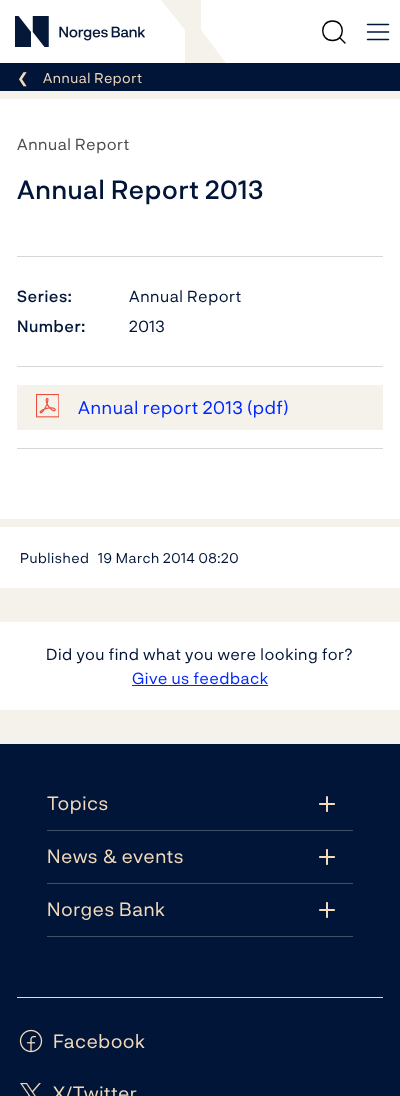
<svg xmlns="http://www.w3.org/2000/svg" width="400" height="1096">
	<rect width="100%" height="100%" fill="#F5F2EB" />
	<rect x="0" y="0" width="400" height="63" fill="#FFFFFF" />
	<image x="15" y="16" width="130" height="31" href="assets/img1.png" />
	<path d="M161 0L185 30V63H226L201 30V0Z" fill="#F5F2EB" />
	<path d="M332.5 40.5C345.5 40.5 345.5 21 332.5 21C319.5 21 319.5 40.5 332.5 40.5ZM339.5 37.5L345 43" fill="none" stroke="#000000" stroke-width="1.4" stroke-linecap="round" stroke-linejoin="round" />
	<path d="M367.5 32H388.5M367.5 24.5H388.5M367.5 39.5H388.5" fill="none" stroke="#001538" stroke-width="1.5" stroke-linecap="round" stroke-linejoin="round" />
	<rect x="0" y="63" width="400" height="28" fill="#001538" />
	<text x="17" y="83" font-family="DejaVu Sans" font-size="14" letter-spacing="0.55" fill="#F2DABB">❮</text>
	<text x="43" y="83" font-family="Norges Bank" font-size="14" letter-spacing="0.55" fill="#F2DABB">Annual Report</text>
	<rect x="0" y="99" width="400" height="420" fill="#FFFFFF" />
	<text x="17" y="150" font-family="Norges Bank" font-size="16" letter-spacing="0.55" fill="#494C50">Annual Report</text>
	<text x="17" y="199" font-family="Norges Bank" font-size="26" font-weight="500" letter-spacing="0.55" fill="#001538">Annual Report 2013</text>
	<rect x="17" y="256" width="366" height="1" fill="#D7D7D7" />
	<text x="17" y="302" font-family="Norges Bank" font-size="16" font-weight="500" letter-spacing="0.55" fill="#001538">Series:</text>
	<text x="129" y="302" font-family="Norges Bank" font-size="16" letter-spacing="0.55" fill="#001538">Annual Report</text>
	<text x="17" y="332" font-family="Norges Bank" font-size="16" font-weight="500" letter-spacing="0.55" fill="#001538">Number:</text>
	<text x="129" y="332" font-family="Norges Bank" font-size="16" letter-spacing="0.55" fill="#001538">2013</text>
	<rect x="17" y="366" width="366" height="1" fill="#D7D7D7" />
	<rect x="17" y="448" width="366" height="1" fill="#D7D7D7" />
	<rect x="17" y="385" width="366" height="45" fill="#F5F2EB" />
	<image x="36" y="394" width="23" height="24" href="assets/img2.png" />
	<text x="78" y="414" font-family="Norges Bank" font-size="18" letter-spacing="0.55" fill="#0026FF">Annual report 2013 (pdf)</text>
	<rect x="0" y="527" width="400" height="61" fill="#FFFFFF" />
	<g font-family="Norges Bank" font-size="14" letter-spacing="0.55" fill="#001538">
		<text x="20" y="563">Published</text>
		<text x="98" y="563">19 March 2014 08:20</text>
	</g>
	<rect x="0" y="622" width="400" height="88" fill="#FFFFFF" />
	<text x="46" y="660" font-family="Norges Bank" font-size="16" letter-spacing="0.55" fill="#001538">Did you find what you were looking for?</text>
	<text x="132" y="684" font-family="Norges Bank" font-size="16" letter-spacing="0.55" fill="#0026FF">Give us feedback</text>
	<rect x="132" y="685" width="136" height="1" fill="#0026FF" />
	<rect x="0" y="744" width="400" height="352" fill="#001538" />
	<rect x="17" y="997" width="366" height="1" fill="#F2DABB" />
	<rect x="47" y="830" width="306" height="1" fill="#40506A" />
	<text x="47" y="810" font-family="Norges Bank" font-size="19" letter-spacing="0.55" fill="#F2DABB">Topics</text>
	<path d="M326.5 812H327.5L328 811.5V796.5L327.5 796H326.5L326 796.5V811.5Z" fill="#F2DABB" />
	<path d="M319.5 805H334.5L335 804.5V803.5L334.5 803H319.5L319 803.5V804.5ZM326.5 865H327.5L328 864.5V849.5L327.5 849H326.5L326 849.5V864.5Z" fill="#F2DABB" />
	<rect x="47" y="883" width="306" height="1" fill="#40506A" />
	<text x="47" y="863" font-family="Norges Bank" font-size="19" letter-spacing="0.55" fill="#F2DABB">News &amp; events</text>
	<path d="M319.5 858H334.5L335 857.5V856.5L334.5 856H319.5L319 856.5V857.5ZM326.5 918H327.5L328 917.5V902.5L327.5 902H326.5L326 902.5V917.5Z" fill="#F2DABB" />
	<rect x="47" y="936" width="306" height="1" fill="#40506A" />
	<text x="47" y="916" font-family="Norges Bank" font-size="19" letter-spacing="0.55" fill="#F2DABB">Norges Bank</text>
	<path d="M319.5 911H334.5L335 910.5V909.5L334.5 909H319.5L319 909.5V910.5Z" fill="#F2DABB" />
	<image x="19" y="1029" width="24" height="24" href="assets/img3.png" />
	<text x="53" y="1048" font-family="Norges Bank" font-size="19" letter-spacing="0.55" fill="#F2DABB">Facebook</text>
	<image x="20" y="1083" width="21" height="13" href="assets/img4.png" />
	<text x="53" y="1100" font-family="Norges Bank" font-size="19" letter-spacing="0.55" fill="#F2DABB">X/Twitter</text>
</svg>
